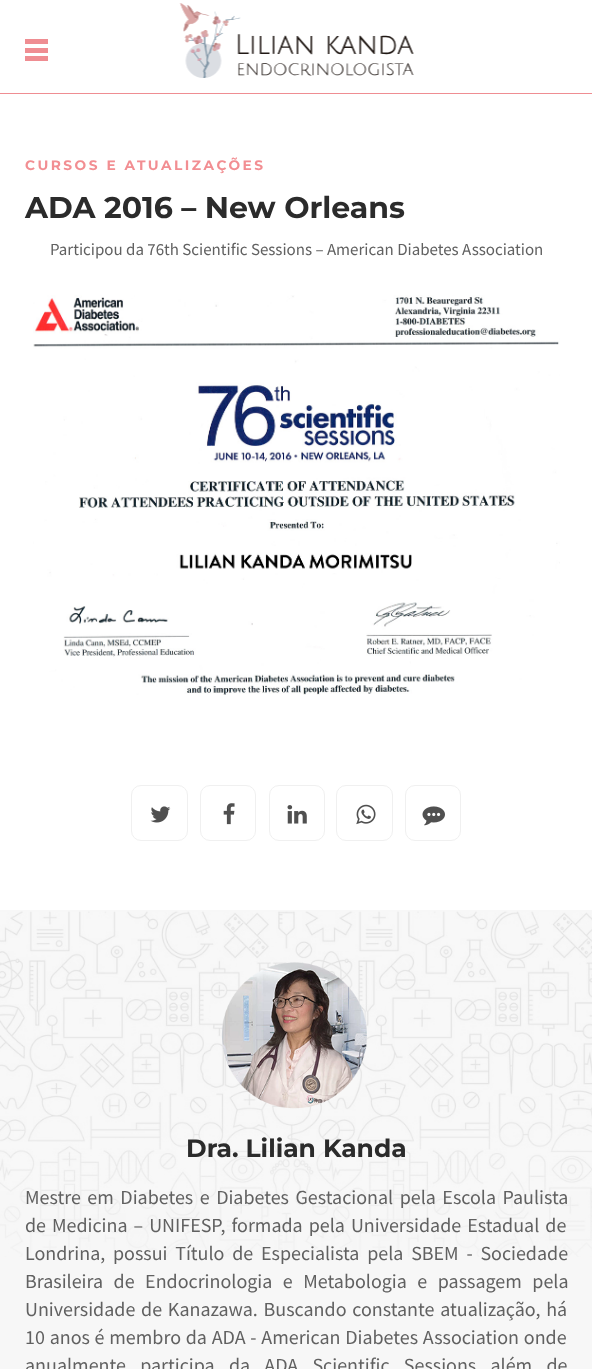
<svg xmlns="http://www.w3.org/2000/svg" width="592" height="1369">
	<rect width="100%" height="100%" fill="#FFFFFF" />
	<rect x="0" y="93" width="592" height="1" fill="#EF8D92" />
	<rect x="25" y="39" width="23" height="5" fill="#EF8D92" />
	<rect x="25" y="48" width="23" height="5" fill="#EF8D92" />
	<rect x="25" y="56" width="23" height="5" fill="#EF8D92" />
	<image x="179" y="3" width="235" height="75" href="assets/img1.png" />
	<text x="25" y="170" font-family="Montserrat" font-size="13.75" font-weight="700" letter-spacing="2.5" fill="#F28E92">CURSOS E ATUALIZAÇÕES</text>
	<text x="25" y="218" font-family="Montserrat" font-size="30" font-weight="700" fill="#2B2B2B">ADA 2016 – New Orleans</text>
	<text x="50" y="255" font-family="Source Sans Pro" font-size="16.9" fill="#616161">Participou da 76th Scientific Sessions – American Diabetes Association</text>
	<image x="33" y="295" width="527" height="400" href="assets/img2.png" />
	<rect x="131.5" y="785.5" width="56" height="55" rx="9.5" fill="none" stroke="#F0F0F0" />
	<image x="150" y="806" width="21" height="17" href="assets/img3.png" />
	<rect x="200.5" y="785.5" width="55" height="55" rx="9.5" fill="none" stroke="#F0F0F0" />
	<image x="223" y="803" width="12" height="22" href="assets/img4.png" />
	<rect x="269.5" y="785.5" width="55" height="55" rx="9.5" fill="none" stroke="#F0F0F0" />
	<image x="287" y="805" width="20" height="19" href="assets/img5.png" />
	<rect x="336.5" y="785.5" width="56" height="55" rx="9.5" fill="none" stroke="#F0F0F0" />
	<image x="356" y="804" width="20" height="21" href="assets/img6.png" />
	<rect x="405.5" y="785.5" width="55" height="55" rx="9.5" fill="none" stroke="#F0F0F0" />
	<image x="422" y="806" width="23" height="20" href="assets/img7.png" />
	<rect x="0" y="910" width="592" height="459" fill="#F7F7F7" />
	<image x="0" y="911" width="592" height="346" href="assets/img8.png" />
	<image x="221" y="962" width="146" height="147" href="assets/img9.png" />
	<text x="186" y="1157" font-family="Montserrat" font-size="25" font-weight="700" fill="#2B2B2B">Dra. Lilian Kanda</text>
	<g font-family="Source Sans Pro" font-size="20" fill="#616161">
		<text x="25" y="1204" word-spacing="2.5">Mestre em Diabetes e Diabetes Gestacional pela Escola Paulista</text>
		<text x="25" y="1232" word-spacing="2">de Medicina – UNIFESP, formada pela Universidade Estadual de</text>
		<text x="25" y="1260" word-spacing="3.75">Londrina, possui Título de Especialista pela SBEM - Sociedade</text>
		<text x="25" y="1288" word-spacing="6.5">Brasileira de Endocrinologia e Metabologia e passagem pela</text>
		<text x="25" y="1316" word-spacing="1.75">Universidade de Kanazawa. Buscando constante atualização, há</text>
		<text x="25" y="1344" word-spacing="0.75">10 anos é membro da ADA - American Diabetes Association onde</text>
		<text x="25" y="1372" word-spacing="10.25">anualmente participa da ADA Scientific Sessions além de</text>
	</g>
</svg>
